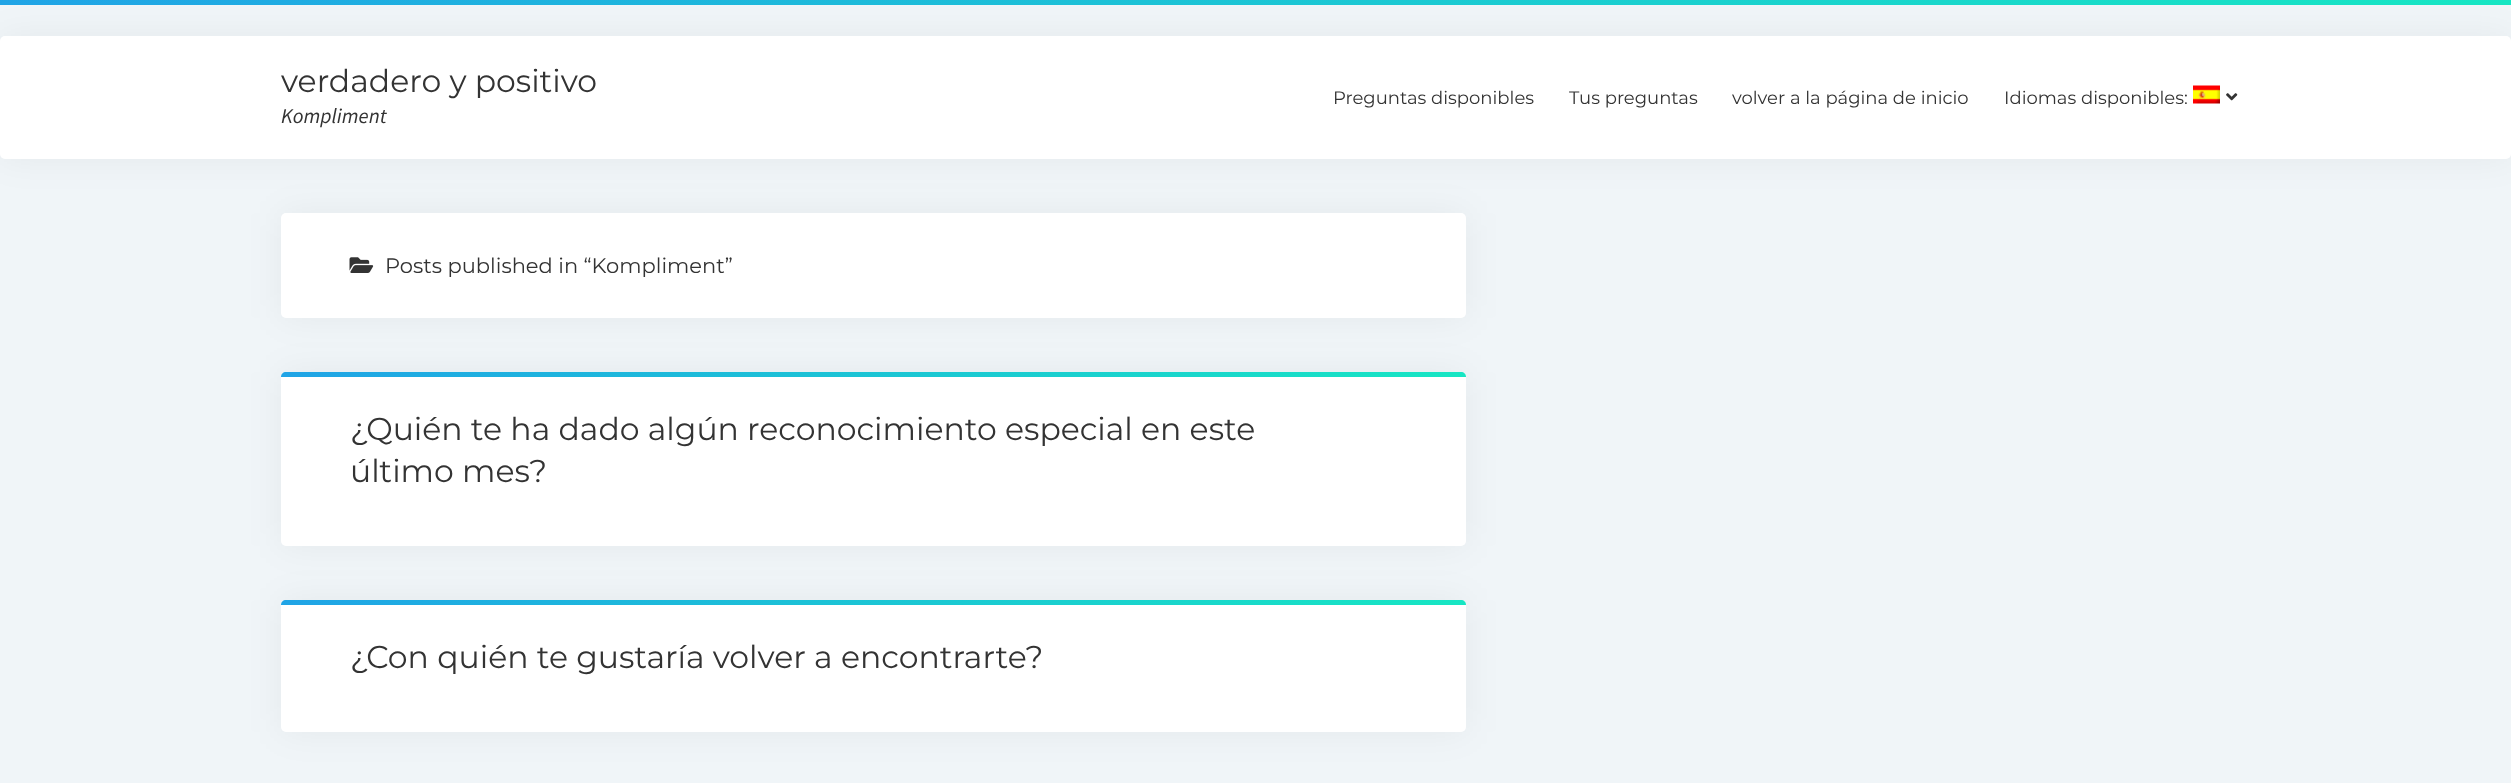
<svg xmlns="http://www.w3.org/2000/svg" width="2511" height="783">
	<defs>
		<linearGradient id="g1" gradientUnits="userSpaceOnUse" x1="0" y1="2.3" x2="2511" y2="2.2"><stop offset="0" stop-color="#20A4E6" /><stop offset="1" stop-color="#17E6C3" /></linearGradient>
		<linearGradient id="g2" gradientUnits="userSpaceOnUse" x1="281" y1="374" x2="1466" y2="374"><stop offset="0" stop-color="#20A4E6" /><stop offset="1" stop-color="#17E6C3" /></linearGradient>
		<linearGradient id="g3" gradientUnits="userSpaceOnUse" x1="281" y1="602" x2="1466" y2="602"><stop offset="0" stop-color="#20A4E6" /><stop offset="1" stop-color="#17E6C3" /></linearGradient>
	</defs>
	<rect width="100%" height="100%" fill="#F0F5F8" />
	<rect x="281" y="213" width="1185" height="105" rx="5" fill="#000000" fill-opacity="0.05" filter="blur(18px)" />
	<rect x="281" y="213" width="1185" height="105" rx="5" fill="#FFFFFF" />
	<rect x="0" y="36" width="2511" height="123" rx="5" fill="#000000" fill-opacity="0.05" filter="blur(18px)" />
	<rect x="0" y="0" width="2511" height="5" fill="url(#g1)" />
	<rect x="0" y="36" width="2511" height="123" rx="5" fill="#FFFFFF" />
	<text x="281" y="92" font-family="Montserrat" font-size="31.5" font-weight="100" fill="#333333">verdadero y positivo</text>
	<text x="281" y="123" font-family="Source Sans Pro" font-size="21" font-style="italic" fill="#333333">Kompliment</text>
	<g font-family="Montserrat" font-size="18" font-weight="100" fill="#333333">
		<text x="1333" y="104">Preguntas disponibles</text>
		<text x="1569" y="104">Tus preguntas</text>
		<text x="1732" y="104">volver a la página de inicio</text>
		<text x="2004" y="104">Idiomas disponibles:</text>
	</g>
	<image x="2193" y="85" width="27" height="19" href="assets/img1.png" />
	<image x="2226" y="93" width="12" height="8" href="assets/img2.png" />
	<image x="349" y="257" width="25" height="16" href="assets/img3.png" />
	<text x="385" y="273" font-family="Montserrat" font-size="21" font-weight="100" fill="#333333">Posts published in “Kompliment”</text>
	<rect x="281" y="372" width="1185" height="174" rx="5" fill="#000000" fill-opacity="0.05" filter="blur(18px)" />
	<rect x="281" y="372" width="1185" height="174" rx="5" fill="#FFFFFF" />
	<path d="M286 372H1461C1464 372 1466 374 1466 377H281C281 374 283 372 286 372Z" fill="url(#g2)" />
	<g font-family="Montserrat" font-size="31.5" font-weight="100" fill="#333333">
		<text x="350" y="440">¿Quién te ha dado algún reconocimiento especial en este</text>
		<text x="350" y="482">último mes?</text>
	</g>
	<rect x="281" y="600" width="1185" height="132" rx="5" fill="#000000" fill-opacity="0.05" filter="blur(18px)" />
	<rect x="281" y="600" width="1185" height="132" rx="5" fill="#FFFFFF" />
	<path d="M286 600H1461C1464 600 1466 602 1466 605H281C281 602 283 600 286 600Z" fill="url(#g3)" />
	<text x="350" y="668" font-family="Montserrat" font-size="31.5" font-weight="100" fill="#333333">¿Con quién te gustaría volver a encontrarte?</text>
</svg>
